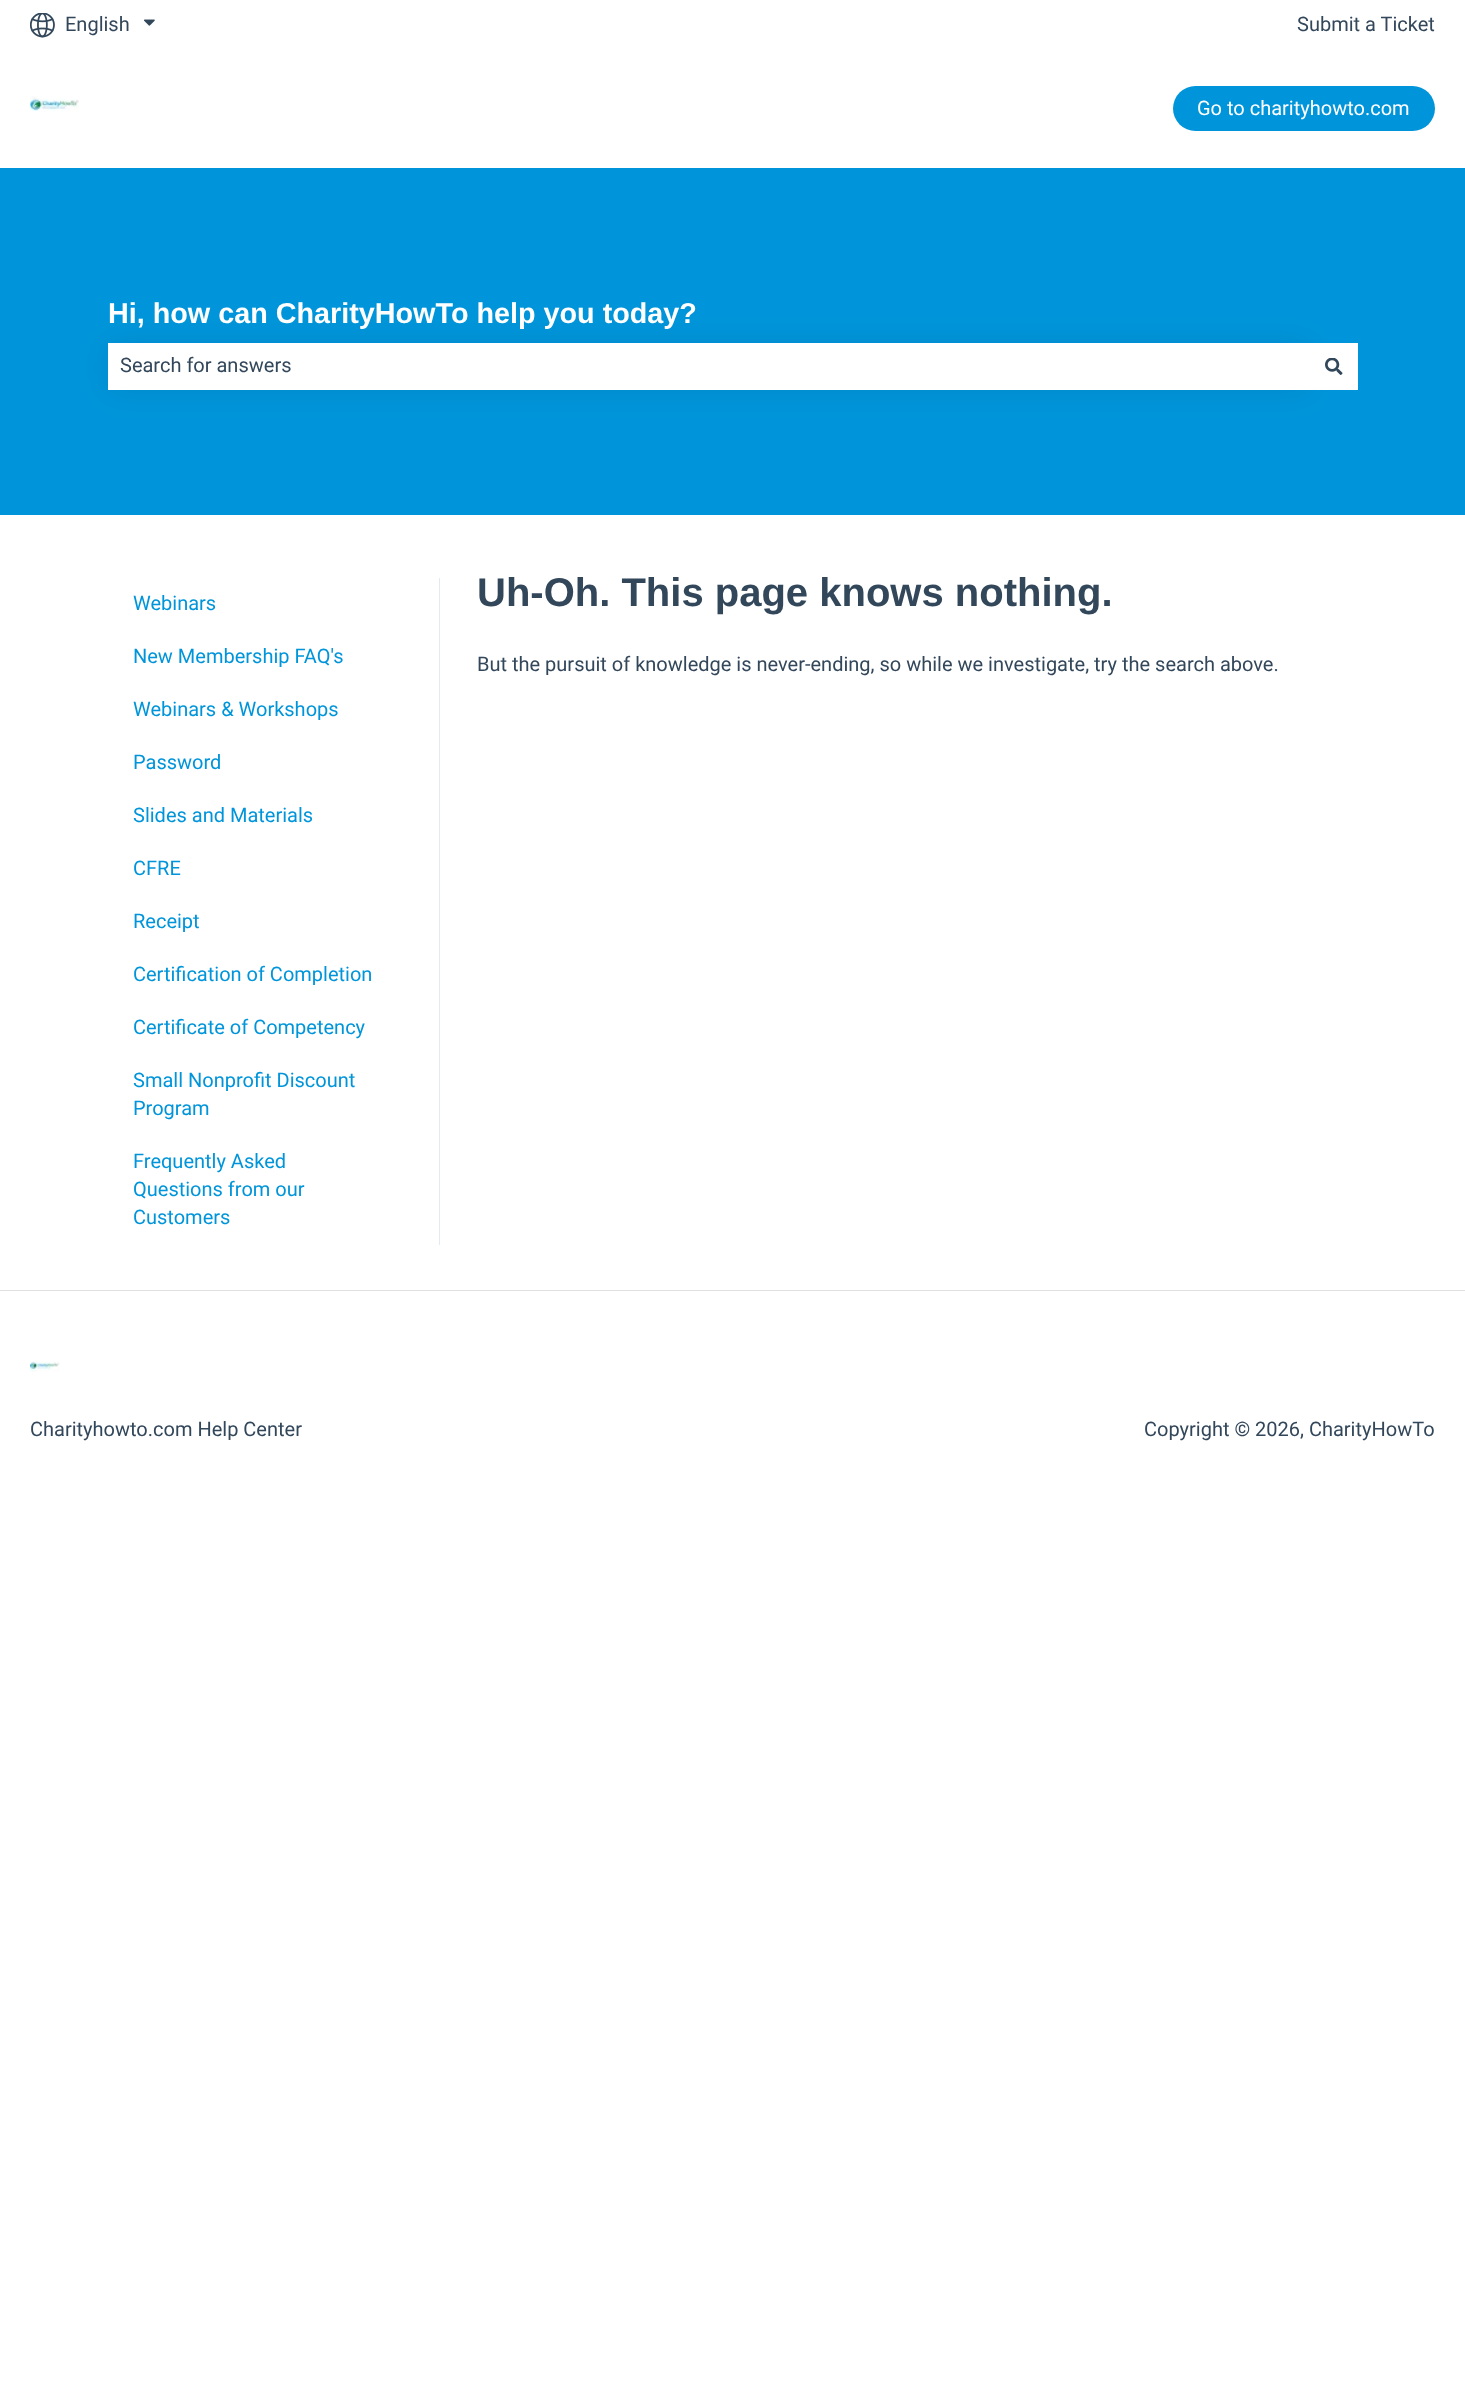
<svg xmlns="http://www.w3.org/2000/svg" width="1465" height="2399">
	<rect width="100%" height="100%" fill="#FFFFFF" />
	<image x="30" y="13" width="25" height="25" href="assets/img1.png" />
	<text x="65" y="31" font-family="Roboto" font-size="20" fill="#33475B">English</text>
	<image x="144" y="19" width="11" height="7" href="assets/img2.png" />
	<text x="1297" y="31" font-family="Roboto" font-size="20" fill="#33475B">Submit a Ticket</text>
	<image x="30" y="96" width="49" height="16" href="assets/img3.png" />
	<rect x="1173" y="86" width="262" height="45" rx="22.5" fill="#0095DA" />
	<text x="1197" y="115" font-family="Roboto" font-size="20" fill="#FFFFFF">Go to charityhowto.com</text>
	<rect x="0" y="168" width="1465" height="347" fill="#0095DA" />
	<text x="108" y="323" font-family="Liberation Sans" font-size="28.75" font-weight="700" fill="#FFFFFF">Hi, how can CharityHowTo help you today?</text>
	<rect x="108" y="344" width="1202" height="47" fill="#000000" fill-opacity="0.08" filter="blur(15px)" />
	<rect x="108" y="343" width="1250" height="47" fill="#FFFFFF" />
	<text x="120" y="372" font-family="Roboto" font-size="20" fill="#33475B">Search for answers</text>
	<image x="1325" y="358" width="18" height="17" href="assets/img4.png" />
	<rect x="439" y="578" width="1" height="667" fill="#E2EBF4" />
	<g font-family="Roboto" font-size="20" fill="#0095DA">
		<text x="133" y="610">Webinars</text>
		<text x="133" y="663">New Membership FAQ's</text>
		<text x="133" y="716">Webinars &amp; Workshops</text>
		<text x="133" y="769">Password</text>
		<text x="133" y="822">Slides and Materials</text>
		<text x="133" y="875">CFRE</text>
		<text x="133" y="928">Receipt</text>
		<text x="133" y="981">Certification of Completion</text>
		<text x="133" y="1034">Certificate of Competency</text>
		<text x="133" y="1087">Small Nonprofit Discount</text>
		<text x="133" y="1115">Program</text>
		<text x="133" y="1168">Frequently Asked</text>
		<text x="133" y="1196">Questions from our</text>
		<text x="133" y="1224">Customers</text>
	</g>
	<text x="477" y="606" font-family="Liberation Sans" font-size="40" font-weight="700" fill="#33475B">Uh-Oh. This page knows nothing.</text>
	<text x="477" y="671" font-family="Roboto" font-size="20" fill="#33475B">But the pursuit of knowledge is never-ending, so while we investigate, try the search above.</text>
	<rect x="0" y="1290" width="1465" height="1" fill="#E0E0E0" />
	<image x="30" y="1361" width="30" height="11" href="assets/img5.png" />
	<g font-family="Roboto" font-size="20" fill="#33475B">
		<text x="30" y="1436">Charityhowto.com Help Center</text>
		<text x="1144" y="1436">Copyright © 2026, CharityHowTo</text>
	</g>
</svg>
